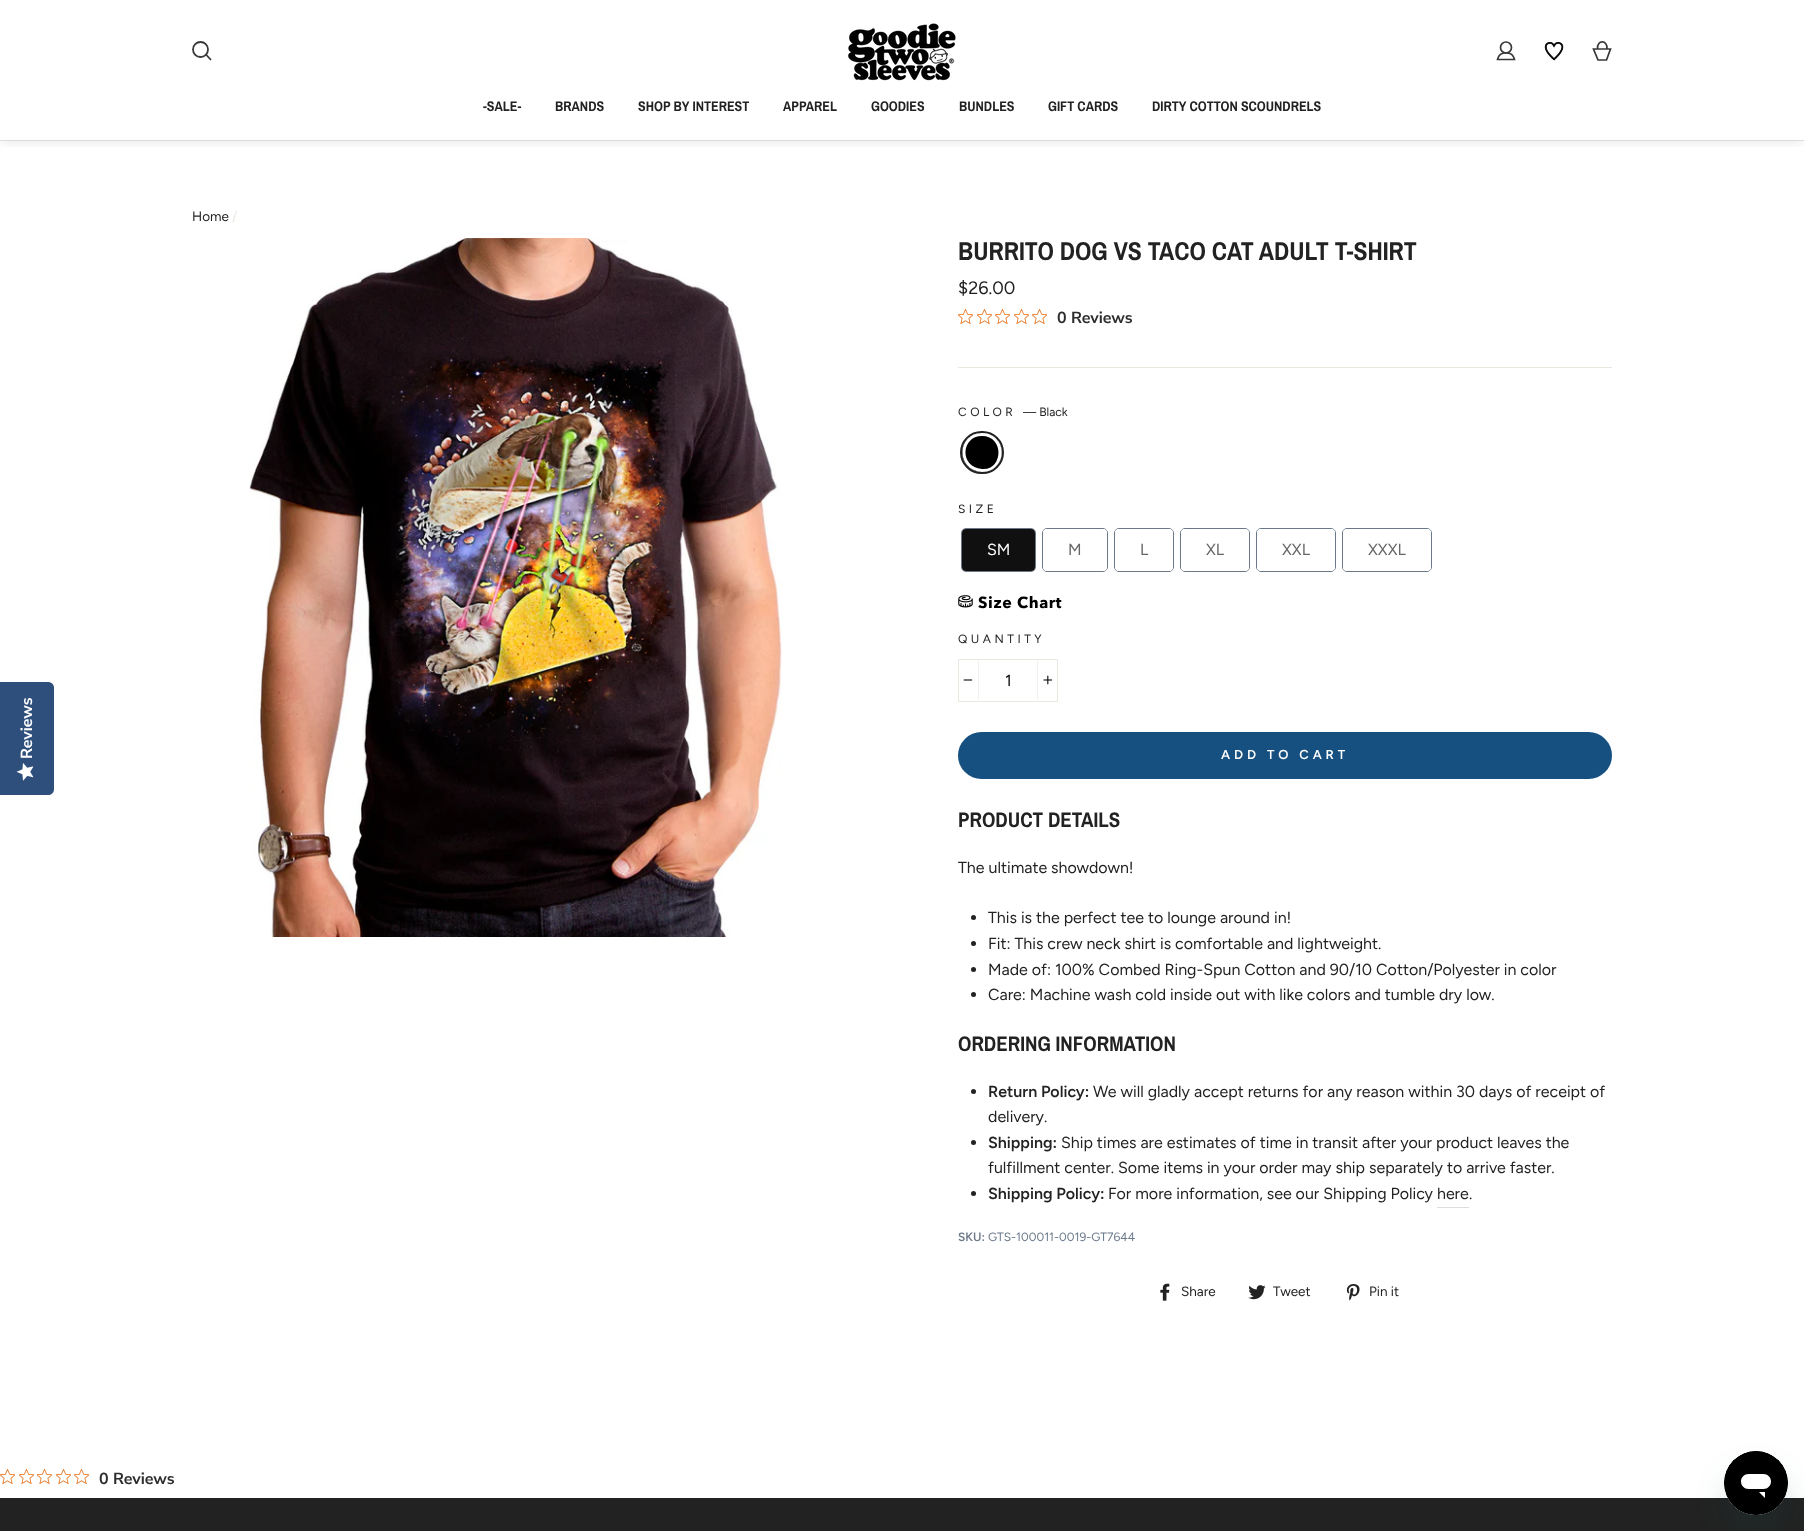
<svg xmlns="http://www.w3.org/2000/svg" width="1804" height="1531">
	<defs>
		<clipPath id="clip1"><rect x="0" y="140" width="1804" height="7" /></clipPath>
	</defs>
	<rect width="100%" height="100%" fill="#FFFFFF" />
	<path d="M0 795V682H48C51 682 54 684 54 688V789C54 793 51 795 48 795Z" fill="#2E4F7C" />
	<text x="32" y="759" transform="rotate(-90 32 759)" font-family="Nunito Sans" font-size="16" font-weight="200" fill="#FFFFFF">Reviews</text>
	<image x="16" y="763" width="18" height="18" href="assets/img1.png" />
	<rect x="0" y="140" width="1804" height="1" fill="#E6E6E6" />
	<g clip-path="url(#clip1)">
		<rect x="0" y="-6" width="1804" height="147" fill="#000000" fill-opacity="0.1" filter="blur(7.5px)" />
	</g>
	<circle cx="200.5" cy="49.5" r="7.5" fill="none" stroke="#383837" stroke-width="1.8" />
	<path d="M211 60L206 54.5" fill="none" stroke="#383837" stroke-width="1.8" />
	<image x="848" y="23" width="108" height="58" href="assets/img2.png" />
	<circle cx="1506" cy="47.5" r="5.5" fill="none" stroke="#383837" stroke-width="1.7" />
	<path d="M1497.5 59.5H1514.5C1512.5 50.5 1499.5 50.5 1497.5 59.5Z" fill="none" stroke="#383837" stroke-width="1.7" />
	<image x="1544" y="41" width="20" height="20" href="assets/img3.png" />
	<path d="M1593.5 49H1610.5L1606.5 60H1598ZM1607 49C1608 39.5 1596.5 39.5 1597.5 49" fill="none" stroke="#383837" stroke-width="1.7" />
	<g font-family="Archivo Narrow" font-size="14" font-weight="700" fill="#222222">
		<text x="483" y="111">-SALE-</text>
		<text x="555" y="111">BRANDS</text>
		<text x="638" y="111">SHOP BY INTEREST</text>
		<text x="783" y="111">APPAREL</text>
		<text x="871" y="111">GOODIES</text>
		<text x="959" y="111">BUNDLES</text>
		<text x="1048" y="111">GIFT CARDS</text>
		<text x="1152" y="111">DIRTY COTTON SCOUNDRELS</text>
	</g>
	<text x="192" y="221" font-family="Figtree" font-size="13.5" fill="#222222">Home</text>
	<text x="232" y="221" font-family="Figtree" font-size="13.5" fill="#E8E8E1">/</text>
	<image x="249" y="238" width="533" height="699" href="assets/img4.png" />
	<text x="958" y="260" font-family="Archivo Narrow" font-size="25.75" font-weight="700" fill="#222222">BURRITO DOG VS TACO CAT ADULT T-SHIRT</text>
	<text x="958" y="294" font-family="Figtree" font-size="18" fill="#1C1D1D">$26.00</text>
	<image x="958" y="309" width="15" height="15" href="assets/img5.png" />
	<image x="977" y="309" width="15" height="15" href="assets/img5.png" />
	<image x="995" y="309" width="15" height="15" href="assets/img5.png" />
	<image x="1014" y="309" width="15" height="15" href="assets/img5.png" />
	<image x="1032" y="309" width="15" height="15" href="assets/img5.png" />
	<text x="1057" y="323" font-family="Nunito Sans" font-size="16" font-weight="200" fill="#2C2C2C">0 Reviews</text>
	<rect x="958" y="367" width="654" height="1" fill="#E8E8E1" />
	<text x="958" y="416" font-family="Figtree" font-size="12" letter-spacing="3.5" fill="#222222">COLOR</text>
	<text x="1023" y="416" font-family="Figtree" font-size="12" fill="#222222">— Black</text>
	<rect x="961" y="432" width="42" height="41" rx="20.5" fill="none" stroke="#222222" stroke-width="2" />
	<rect x="962" y="433" width="40" height="39" rx="19.5" fill="#000000" />
	<path d="M982 433C957 433 955 470 982 472C986 472 990 471 993 469C1009 458 1002 433 982 433ZM982 436C961 436 959 467 982 469C1003 471 1005 436 982 436Z" fill="#FFFFFF" fill-rule="evenodd" />
	<text x="958" y="513" font-family="Figtree" font-size="12" letter-spacing="3.5" fill="#222222">SIZE</text>
	<rect x="961.5" y="528.5" width="74" height="43" rx="4.5" fill="none" stroke="#6A7889" />
	<rect x="962" y="529" width="73" height="42" rx="4" fill="#101010" />
	<text x="987" y="555" font-family="Figtree" font-size="16" fill="#FFFFFF">SM</text>
	<rect x="1042.5" y="528.5" width="65" height="43" rx="4.5" fill="none" stroke="#6A7889" />
	<rect x="1043" y="529" width="64" height="42" rx="4" fill="#FFFFFF" />
	<text x="1068" y="555" font-family="Figtree" font-size="16" fill="#666666">M</text>
	<rect x="1114.5" y="528.5" width="59" height="43" rx="4.5" fill="none" stroke="#6A7889" />
	<rect x="1115" y="529" width="58" height="42" rx="4" fill="#FFFFFF" />
	<text x="1140" y="555" font-family="Figtree" font-size="16" fill="#666666">L</text>
	<rect x="1180.5" y="528.5" width="69" height="43" rx="4.5" fill="none" stroke="#6A7889" />
	<rect x="1181" y="529" width="68" height="42" rx="4" fill="#FFFFFF" />
	<text x="1206" y="555" font-family="Figtree" font-size="16" fill="#666666">XL</text>
	<rect x="1256.5" y="528.5" width="79" height="43" rx="4.5" fill="none" stroke="#6A7889" />
	<rect x="1257" y="529" width="78" height="42" rx="4" fill="#FFFFFF" />
	<text x="1282" y="555" font-family="Figtree" font-size="16" fill="#666666">XXL</text>
	<rect x="1342.5" y="528.5" width="89" height="43" rx="4.5" fill="none" stroke="#6A7889" />
	<rect x="1343" y="529" width="88" height="42" rx="4" fill="#FFFFFF" />
	<text x="1368" y="555" font-family="Figtree" font-size="16" fill="#666666">XXXL</text>
	<image x="958" y="595" width="15" height="13" href="assets/img6.png" />
	<text x="978" y="608" font-family="Avenir Next" font-size="16" font-weight="700" letter-spacing="0.6" fill="#000000">Size Chart</text>
	<text x="958" y="643" font-family="Figtree" font-size="12" letter-spacing="3.5" fill="#222222">QUANTITY</text>
	<rect x="958.5" y="659.5" width="99" height="42" fill="none" stroke="#E8E8E1" />
	<rect x="978" y="659" width="1" height="43" fill="#F2F2F2" />
	<image x="963" y="679" width="10" height="2" href="assets/img7.png" />
	<text x="1005" y="686" font-family="Figtree" font-size="16" fill="#000000">1</text>
	<rect x="1037" y="659" width="1" height="43" fill="#F2F2F2" />
	<image x="1043" y="675" width="10" height="10" href="assets/img8.png" />
	<rect x="958" y="732" width="654" height="47" rx="23.5" fill="#165080" />
	<text x="1221" y="759" font-family="Figtree" font-size="13" font-weight="600" letter-spacing="3.9" fill="#FFFFFF">ADD TO CART</text>
	<text x="958" y="827" font-family="Archivo Narrow" font-size="21" font-weight="700" fill="#222222">PRODUCT DETAILS</text>
	<text x="958" y="873" font-family="Figtree" font-size="16" fill="#222222">The ultimate showdown!</text>
	<circle cx="973.5" cy="917.5" r="2.5" fill="#222222" />
	<text x="988" y="923" font-family="Figtree" font-size="16" fill="#222222">This is the perfect tee to lounge around in!</text>
	<circle cx="973.5" cy="943.5" r="2.5" fill="#222222" />
	<text x="988" y="949" font-family="Figtree" font-size="16" fill="#222222">Fit: This crew neck shirt is comfortable and lightweight.</text>
	<circle cx="973.5" cy="969.5" r="2.5" fill="#222222" />
	<text x="988" y="975" font-family="Figtree" font-size="16" fill="#222222">Made of: 100% Combed Ring-Spun Cotton and 90/10 Cotton/Polyester in color</text>
	<circle cx="973.5" cy="994.5" r="2.5" fill="#222222" />
	<text x="988" y="1000" font-family="Figtree" font-size="16" fill="#222222">Care: Machine wash cold inside out with like colors and tumble dry low.</text>
	<text x="958" y="1051" font-family="Archivo Narrow" font-size="21" font-weight="700" fill="#222222">ORDERING INFORMATION</text>
	<circle cx="973.5" cy="1091.5" r="2.5" fill="#222222" />
	<text x="988" y="1097" font-family="Figtree" font-size="16" font-weight="600" fill="#222222">Return Policy:</text>
	<g font-family="Figtree" font-size="16" fill="#222222">
		<text x="1093" y="1097">We will gladly accept returns for any reason within 30 days of receipt of</text>
		<text x="988" y="1122">delivery.</text>
	</g>
	<circle cx="973.5" cy="1142.5" r="2.5" fill="#222222" />
	<text x="988" y="1148" font-family="Figtree" font-size="16" font-weight="600" fill="#222222">Shipping:</text>
	<g font-family="Figtree" font-size="16" fill="#222222">
		<text x="1061" y="1148">Ship times are estimates of time in transit after your product leaves the</text>
		<text x="988" y="1173">fulfillment center. Some items in your order may ship separately to arrive faster.</text>
	</g>
	<circle cx="973.5" cy="1193.5" r="2.5" fill="#222222" />
	<text x="988" y="1199" font-family="Figtree" font-size="16" font-weight="600" fill="#222222">Shipping Policy:</text>
	<g font-family="Figtree" font-size="16" fill="#222222">
		<text x="1108" y="1199">For more information, see our Shipping Policy here</text>
		<text x="1469" y="1199">.</text>
	</g>
	<rect x="1437" y="1207" width="32" height="1" fill="#DEDEDE" />
	<text x="958" y="1241" font-family="Figtree" font-size="12" font-weight="600" fill="#6A7889">SKU:</text>
	<text x="988" y="1241" font-family="Figtree" font-size="12" fill="#6A7889">GTS-100011-0019-GT7644</text>
	<image x="1160" y="1283" width="10" height="18" href="assets/img9.png" />
	<text x="1181" y="1296" font-family="Figtree" font-size="13.5" fill="#222222">Share</text>
	<image x="1248" y="1285" width="18" height="15" href="assets/img10.png" />
	<text x="1273" y="1296" font-family="Figtree" font-size="13.5" fill="#222222">Tweet</text>
	<image x="1346" y="1284" width="14" height="17" href="assets/img11.png" />
	<text x="1369" y="1296" font-family="Figtree" font-size="13.5" fill="#222222">Pin it</text>
	<image x="0" y="1469" width="15" height="15" href="assets/img5.png" />
	<image x="19" y="1469" width="15" height="15" href="assets/img5.png" />
	<image x="37" y="1469" width="15" height="15" href="assets/img5.png" />
	<image x="56" y="1469" width="15" height="15" href="assets/img5.png" />
	<image x="74" y="1469" width="15" height="15" href="assets/img5.png" />
	<text x="99" y="1484" font-family="Nunito Sans" font-size="16" font-weight="200" fill="#2C2C2C">0 Reviews</text>
	<rect x="0" y="1498" width="1804" height="33" fill="#222222" />
	<rect x="1724" y="1471" width="64" height="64" rx="32" fill="#17494D" fill-opacity="0.15" filter="blur(15px)" />
	<image x="1724" y="1451" width="64" height="64" href="assets/img12.png" />
</svg>
